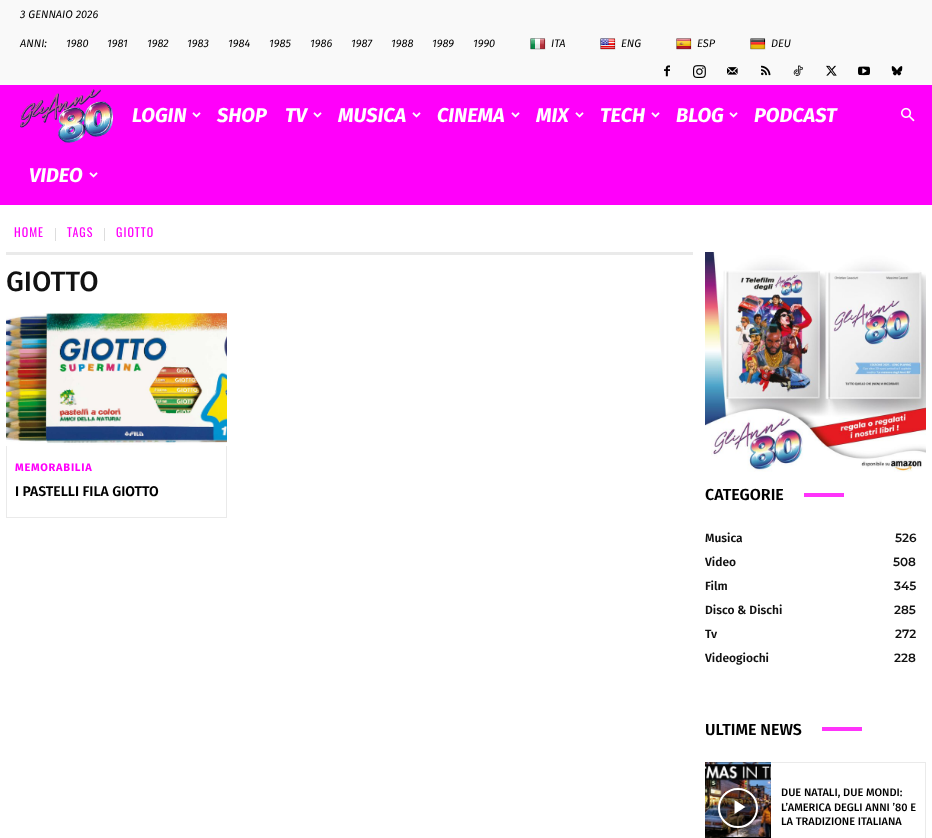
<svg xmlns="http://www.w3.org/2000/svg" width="932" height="838">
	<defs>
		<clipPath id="clip1"><path d="M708 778H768V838H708ZM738 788C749 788 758 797 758 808C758 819 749 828 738 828C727 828 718 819 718 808C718 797 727 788 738 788Z" clip-rule="evenodd" /></clipPath>
	</defs>
	<rect width="100%" height="100%" fill="#FFFFFF" />
	<rect x="0" y="0" width="932" height="85" fill="#F9F9F9" />
	<g font-family="Fira Sans" font-size="11" font-style="italic" fill="#000000">
		<text x="20" y="18">3 GENNAIO 2026</text>
		<text x="20" y="47">ANNI:</text>
		<text x="66" y="47">1980</text>
		<text x="107" y="47">1981</text>
		<text x="147" y="47">1982</text>
		<text x="187" y="47">1983</text>
		<text x="228" y="47">1984</text>
		<text x="269" y="47">1985</text>
		<text x="310" y="47">1986</text>
		<text x="351" y="47">1987</text>
		<text x="391" y="47">1988</text>
		<text x="432" y="47">1989</text>
		<text x="473" y="47">1990</text>
	</g>
	<image x="530" y="38" width="16" height="12" href="assets/img1.png" />
	<text x="551" y="47" font-family="Fira Sans" font-size="11" font-style="italic" fill="#000000">ITA</text>
	<image x="600" y="38" width="16" height="12" href="assets/img2.png" />
	<text x="621" y="47" font-family="Fira Sans" font-size="11" font-style="italic" fill="#000000">ENG</text>
	<image x="676" y="38" width="16" height="12" href="assets/img3.png" />
	<text x="697" y="47" font-family="Fira Sans" font-size="11" font-style="italic" fill="#000000">ESP</text>
	<image x="750" y="38" width="16" height="12" href="assets/img4.png" />
	<text x="771" y="47" font-family="Fira Sans" font-size="11" font-style="italic" fill="#000000">DEU</text>
	<image x="664" y="65" width="6" height="12" href="assets/img5.png" />
	<image x="693" y="65" width="13" height="13" href="assets/img6.png" />
	<image x="727" y="67" width="11" height="8" href="assets/img7.png" />
	<image x="761" y="65" width="10" height="11" href="assets/img8.png" />
	<image x="793" y="65" width="10" height="11" href="assets/img9.png" />
	<image x="826" y="65" width="11" height="11" href="assets/img10.png" />
	<image x="858" y="66" width="12" height="10" href="assets/img11.png" />
	<image x="891" y="66" width="12" height="10" href="assets/img12.png" />
	<rect x="0" y="85" width="932" height="120" fill="#FF00FA" />
	<image x="20" y="89" width="93" height="54" href="assets/img13.png" />
	<text x="132" y="122" font-family="Fira Sans" font-size="20" font-weight="700" font-style="italic" fill="#FFFFFF">LOGIN</text>
	<image x="192" y="112" width="9" height="6" href="assets/img14.png" />
	<g font-family="Fira Sans" font-size="20" font-weight="700" font-style="italic" fill="#FFFFFF">
		<text x="217" y="122">SHOP</text>
		<text x="285" y="122">TV</text>
	</g>
	<image x="313" y="112" width="9" height="6" href="assets/img14.png" />
	<text x="338" y="122" font-family="Fira Sans" font-size="20" font-weight="700" font-style="italic" fill="#FFFFFF">MUSICA</text>
	<image x="412" y="112" width="9" height="6" href="assets/img14.png" />
	<text x="437" y="122" font-family="Fira Sans" font-size="20" font-weight="700" font-style="italic" fill="#FFFFFF">CINEMA</text>
	<image x="511" y="112" width="9" height="6" href="assets/img14.png" />
	<text x="536" y="122" font-family="Fira Sans" font-size="20" font-weight="700" font-style="italic" fill="#FFFFFF">MIX</text>
	<image x="575" y="112" width="9" height="6" href="assets/img14.png" />
	<text x="600" y="122" font-family="Fira Sans" font-size="20" font-weight="700" font-style="italic" fill="#FFFFFF">TECH</text>
	<image x="651" y="112" width="9" height="6" href="assets/img14.png" />
	<text x="676" y="122" font-family="Fira Sans" font-size="20" font-weight="700" font-style="italic" fill="#FFFFFF">BLOG</text>
	<image x="729" y="112" width="9" height="6" href="assets/img14.png" />
	<g font-family="Fira Sans" font-size="20" font-weight="700" font-style="italic" fill="#FFFFFF">
		<text x="754" y="122">PODCAST</text>
		<text x="29" y="182">VIDEO</text>
	</g>
	<image x="89" y="172" width="9" height="6" href="assets/img14.png" />
	<image x="901" y="107" width="14" height="15" href="assets/img15.png" />
	<text x="14" y="237" font-family="Oswald" font-size="12" letter-spacing="1" fill="#FF00FA">HOME</text>
	<rect x="55" y="228" width="1" height="13" fill="#DDDDDD" />
	<text x="67" y="237" font-family="Oswald" font-size="12" letter-spacing="1" fill="#FF00FA">TAGS</text>
	<rect x="104" y="228" width="1" height="13" fill="#DDDDDD" />
	<text x="116" y="237" font-family="Oswald" font-size="12" letter-spacing="1" fill="#FF00FA">GIOTTO</text>
	<rect x="6" y="252" width="687" height="3" fill="#EAEAEA" />
	<text x="6" y="291" font-family="Fira Sans" font-size="28" font-weight="500" fill="#111111">GIOTTO</text>
	<image x="6" y="313" width="221" height="132" href="assets/img16.png" />
	<rect x="226" y="446" width="1" height="72" fill="#EAEAEA" />
	<rect x="6" y="517" width="221" height="1" fill="#EAEAEA" />
	<rect x="6" y="446" width="1" height="72" fill="#EAEAEA" />
	<text x="15" y="471" font-family="Fira Sans" font-size="11" font-weight="700" letter-spacing="0.75" fill="#FF00FA">MEMORABILIA</text>
	<text x="15" y="496" font-family="Fira Sans" font-size="14" font-weight="600" fill="#000000">I PASTELLI FILA GIOTTO</text>
	<image x="705" y="252" width="221" height="220" href="assets/img17.png" />
	<text x="705" y="500" font-family="Fira Sans" font-size="16" font-weight="600" fill="#000000">CATEGORIE</text>
	<rect x="804" y="493" width="40" height="4" fill="#FF33FB" />
	<text x="705" y="542" font-family="Fira Sans" font-size="12" font-weight="600" fill="#111111">Musica</text>
	<text x="895" y="542" font-family="Montserrat" font-size="12" font-weight="600" fill="#111111">526</text>
	<text x="705" y="566" font-family="Fira Sans" font-size="12" font-weight="600" fill="#111111">Video</text>
	<text x="893" y="566" font-family="Montserrat" font-size="12" font-weight="600" fill="#111111">508</text>
	<text x="705" y="590" font-family="Fira Sans" font-size="12" font-weight="600" fill="#111111">Film</text>
	<text x="894" y="590" font-family="Montserrat" font-size="12" font-weight="600" fill="#111111">345</text>
	<text x="705" y="614" font-family="Fira Sans" font-size="12" font-weight="600" fill="#111111">Disco &amp; Dischi</text>
	<text x="894" y="614" font-family="Montserrat" font-size="12" font-weight="600" fill="#111111">285</text>
	<text x="705" y="638" font-family="Fira Sans" font-size="12" font-weight="600" fill="#111111">Tv</text>
	<text x="895" y="638" font-family="Montserrat" font-size="12" font-weight="600" fill="#111111">272</text>
	<text x="705" y="662" font-family="Fira Sans" font-size="12" font-weight="600" fill="#111111">Videogiochi</text>
	<text x="894" y="662" font-family="Montserrat" font-size="12" font-weight="600" fill="#111111">228</text>
	<text x="705" y="735" font-family="Fira Sans" font-size="16" font-weight="600" fill="#000000">ULTIME NEWS</text>
	<rect x="822" y="727" width="40" height="4" fill="#FF33FB" />
	<image x="705" y="762" width="66" height="76" href="assets/img18.png" />
	<g clip-path="url(#clip1)">
		<rect x="718" y="788" width="40" height="40" rx="20" fill="#000000" fill-opacity="0.4" filter="blur(3px)" />
	</g>
	<circle cx="738" cy="808" r="19" fill="#000000" fill-opacity="0.48" stroke="#FFFFFF" stroke-width="2" />
	<path d="M734.5 800V814L745.5 807Z" fill="#FFFFFF" />
	<rect x="720" y="837" width="51" height="1" fill="#000000" />
	<rect x="771" y="762" width="155" height="1" fill="#EAEAEA" />
	<rect x="925" y="762" width="1" height="76" fill="#EAEAEA" />
	<g font-family="Fira Sans" font-size="11" font-weight="500" fill="#000000">
		<text x="781" y="796">DUE NATALI, DUE MONDI:</text>
		<text x="781" y="811">L’AMERICA DEGLI ANNI ’80 E</text>
		<text x="781" y="825">LA TRADIZIONE ITALIANA</text>
	</g>
</svg>
